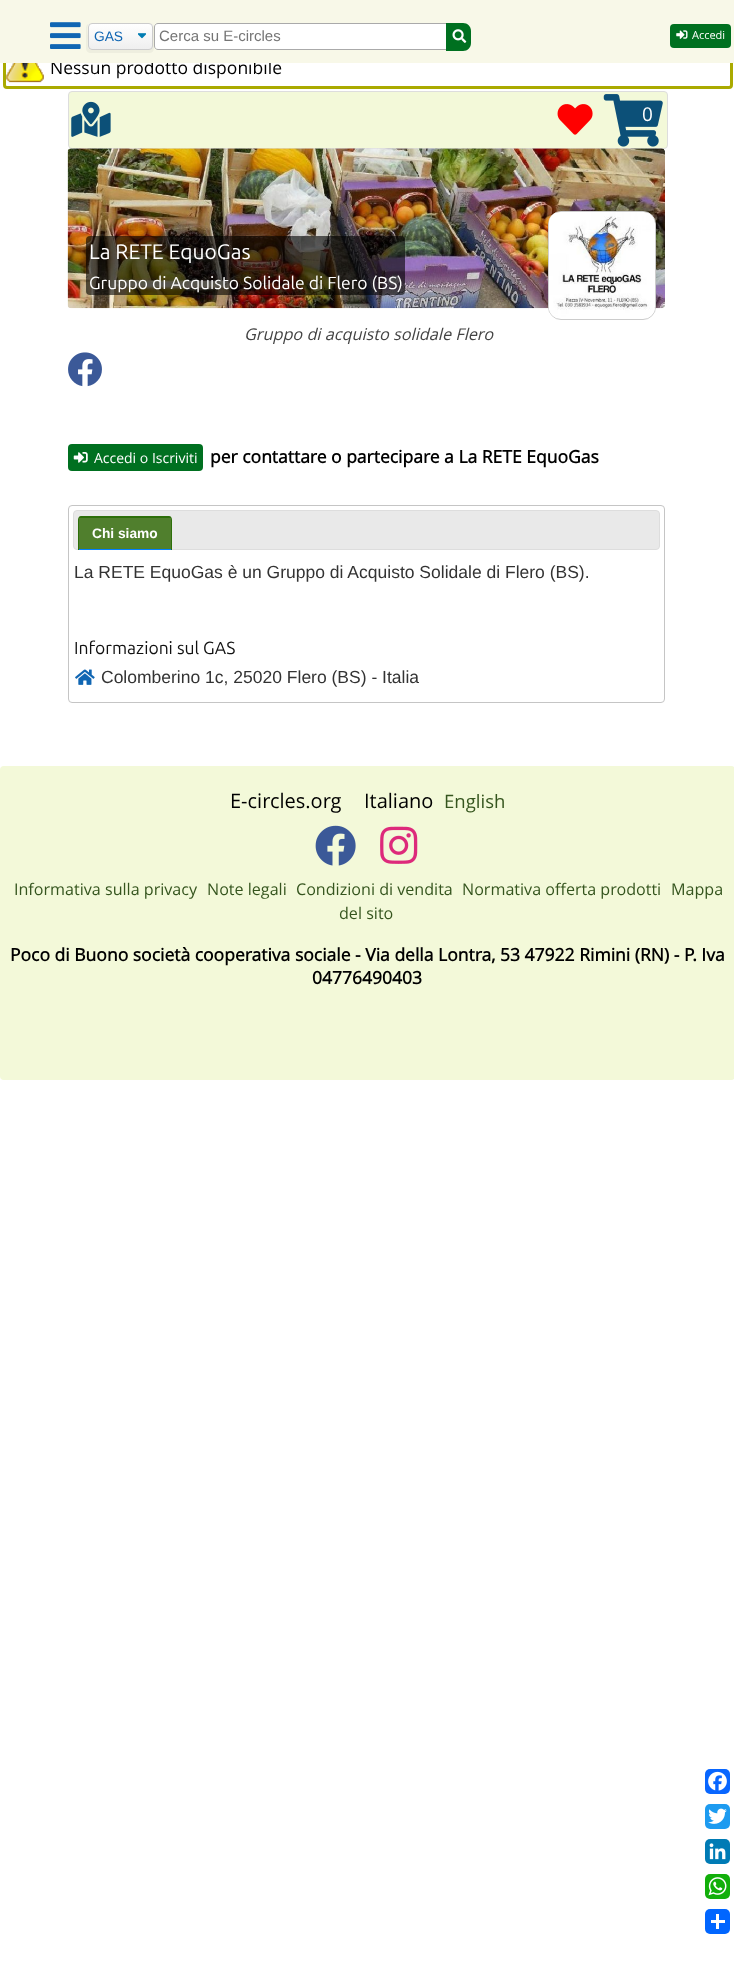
<svg xmlns="http://www.w3.org/2000/svg" width="734" height="1981">
	<defs>
		<clipPath id="clip1"><rect x="88" y="23" width="65" height="27" rx="4" /></clipPath>
		<linearGradient id="g1" gradientUnits="userSpaceOnUse" x1="120" y1="24" x2="120" y2="49"><stop offset="0" stop-color="#FFFFFF" /><stop offset="1" stop-color="#EFEFEF" /></linearGradient>
	</defs>
	<rect width="100%" height="100%" fill="#FFFFFF" />
	<image x="6" y="63" width="38" height="20" href="assets/img5.png" />
	<rect x="4.5" y="45.5" width="727" height="42" rx="2.5" fill="none" stroke="#AAAA00" stroke-width="3" />
	<text x="50" y="74" font-family="Open Sans" font-size="17.5" fill="#000000">Nessun prodotto disponibile</text>
	<rect x="0" y="0" width="734" height="63" fill="#F8F8E8" />
	<image x="50" y="22" width="31" height="27" href="assets/img1.png" />
	<path d="M89 24C87 24 86 26 86 28V48C86 51 88 53 91 53H149C152 53 154 51 154 48V28C154 26 153 24 151 24C154 26 152 33 152 36C152 51 155 50 139 50H101C85 50 88 51 88 36C88 33 86 26 89 24Z" fill="#EEEEDF" />
	<g clip-path="url(#clip1)">
		<rect x="88" y="24" width="65" height="25" fill="url(#g1)" />
	</g>
	<image x="138" y="33" width="8" height="6" href="assets/img2.png" />
	<rect x="88.5" y="23.5" width="64" height="26" rx="3.5" fill="none" stroke="#CCCCCC" />
	<text x="94" y="41" font-family="Liberation Sans" font-size="13.75" fill="#1066B3">GAS</text>
	<path d="M158 23.5H447.5V49.5H158C156 49.5 154.5 48 154.5 46V27C154.5 25 156 23.5 158 23.5Z" fill="#FFFFFF" stroke="#AAAAAA" />
	<text x="159" y="41" font-family="Liberation Sans" font-size="15" fill="#757575">Cerca su E-circles</text>
	<path d="M446 23H463C467.5 23 471 26.5 471 31V43C471 47.5 467.5 51 463 51H446Z" fill="#007020" />
	<image x="452" y="29" width="15" height="14" href="assets/img3.png" />
	<rect x="670" y="24" width="61" height="24" rx="4" fill="#007020" />
	<image x="676" y="30" width="12" height="9" href="assets/img4.png" />
	<text x="692" y="39" font-family="Open Sans" font-size="11" fill="#FFFFFF">Accedi</text>
	<rect x="68.5" y="91.5" width="599" height="57" rx="3.5" fill="#F3F9D9" stroke="#DDDDDD" />
	<image x="71" y="101" width="40" height="36" href="assets/img6.png" />
	<image x="557" y="104" width="36" height="31" href="assets/img7.png" />
	<image x="603" y="94" width="60" height="53" href="assets/img8.png" />
	<text x="642" y="121" font-family="Open Sans" font-size="19" fill="#FFFFFF">0</text>
	<image x="67" y="148" width="598" height="161" href="assets/img9.png" />
	<rect x="86" y="236" width="319" height="59" rx="4" fill="#000000" fill-opacity="0.6" />
	<text x="89" y="259" font-family="Ubuntu" font-size="21" fill="#FFFFFF">La RETE EquoGas</text>
	<text x="89" y="289" font-family="Ubuntu" font-size="17.5" fill="#FFFFFF">Gruppo di Acquisto Solidale di Flero (BS)</text>
	<rect x="548.5" y="211.5" width="107" height="108" rx="12.5" fill="none" stroke="#CCCCCC" />
	<image x="548" y="212" width="107" height="106" href="assets/img10.png" />
	<text x="244" y="340" font-family="Open Sans" font-size="16.25" font-style="italic" fill="#444444">Gruppo di acquisto solidale Flero</text>
	<image x="68" y="352" width="34" height="35" href="assets/img11.png" />
	<rect x="68" y="444" width="135" height="27" rx="4" fill="#007020" />
	<image x="73" y="452" width="15" height="11" href="assets/img12.png" />
	<text x="94" y="463" font-family="Open Sans" font-size="14" fill="#FFFFFF">Accedi o Iscriviti</text>
	<text x="210" y="463" font-family="Open Sans" font-size="17.5" font-weight="700" fill="#000000">per contattare o partecipare a La RETE EquoGas</text>
	<rect x="68.5" y="505.5" width="596" height="197" rx="3.5" fill="none" stroke="#C5C5C5" />
	<rect x="73.5" y="510.5" width="586" height="39" rx="3.5" fill="#E9E9E9" stroke="#DDDDDD" />
	<rect x="79" y="549" width="92" height="1" fill="#007FFF" />
	<path d="M81 516H169C171 516 172 518 172 520V550H78V520C78 518 79 516 81 516ZM81 518H169C170 518 171 519 171 520V550H79V520C79 519 80 518 81 518Z" fill="#2D6F0A" fill-rule="evenodd" />
	<rect x="79" y="518" width="92" height="31" fill="#507F2D" />
	<text x="92" y="538" font-family="Liberation Sans" font-size="13.75" font-weight="700" fill="#FFFFFF">Chi siamo</text>
	<text x="74" y="578" font-family="Liberation Sans" font-size="17.5" fill="#333333">La RETE EquoGas è un Gruppo di Acquisto Solidale di Flero (BS).</text>
	<text x="74" y="654" font-family="Ubuntu" font-size="17.5" fill="#111111">Informazioni sul GAS</text>
	<image x="75" y="669" width="20" height="16" href="assets/img13.png" />
	<text x="101" y="683" font-family="Liberation Sans" font-size="17.5" fill="#333333">Colomberino 1c, 25020 Flero (BS) - Italia</text>
	<rect x="0" y="766" width="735" height="314" rx="4" fill="#F3F9D9" />
	<g font-family="Open Sans" font-size="20" fill="#000000">
		<text x="230" y="808">E-circles.org</text>
		<text x="364" y="808">Italiano</text>
	</g>
	<text x="444" y="808" font-family="Open Sans" font-size="18.5" fill="#35551E">English</text>
	<image x="315" y="825" width="41" height="41" href="assets/img14.png" />
	<image x="380" y="826" width="38" height="38" href="assets/img15.png" />
	<g font-family="Open Sans" font-size="16.1" fill="#35551E">
		<text x="14" y="895">Informativa sulla privacy</text>
		<text x="207" y="895">Note legali</text>
		<text x="296" y="895">Condizioni di vendita</text>
		<text x="462" y="895">Normativa offerta prodotti</text>
		<text x="671" y="895">Mappa</text>
		<text x="339" y="919">del sito</text>
	</g>
	<g font-family="Open Sans" font-size="17.5" font-weight="700" fill="#000000">
		<text x="10" y="961">Poco di Buono società cooperativa sociale - Via della Lontra, 53 47922 Rimini (RN) - P. Iva</text>
		<text x="312" y="984">04776490403</text>
	</g>
	<rect x="705" y="1769" width="25" height="25" rx="5" fill="#0866FF" />
	<image x="708" y="1771" width="19" height="20" href="assets/img16.png" />
	<rect x="705" y="1804" width="25" height="25" rx="5" fill="#1D9BF0" />
	<image x="708" y="1808" width="19" height="16" href="assets/img17.png" />
	<rect x="705" y="1839" width="25" height="25" rx="5" fill="#007BB5" />
	<image x="709" y="1843" width="17" height="17" href="assets/img18.png" />
	<rect x="705" y="1874" width="25" height="25" rx="5" fill="#12AF0A" />
	<image x="708" y="1877" width="19" height="19" href="assets/img19.png" />
	<rect x="705" y="1909" width="25" height="25" rx="5" fill="#0166FF" />
	<rect x="716" y="1914" width="3" height="15" fill="#FFFFFF" />
	<rect x="711" y="1920" width="14" height="3" fill="#FFFFFF" />
</svg>
